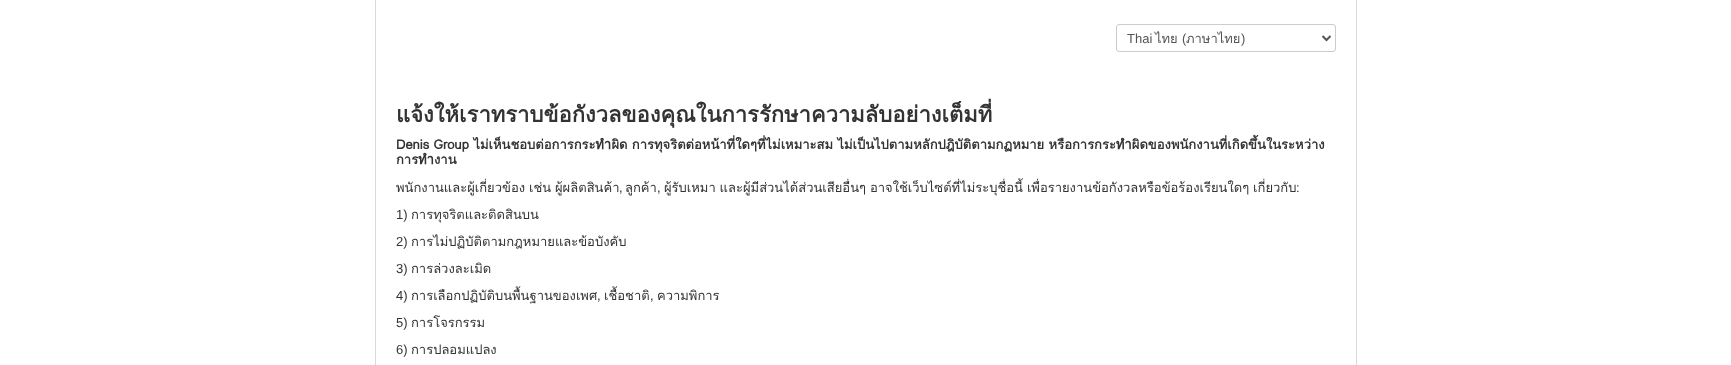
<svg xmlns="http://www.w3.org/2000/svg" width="1731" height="365">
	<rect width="100%" height="100%" fill="#FFFFFF" />
	<rect x="375.5" y="-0.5" width="981" height="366" fill="none" stroke="#D9D9D9" />
	<rect x="1116.5" y="24.5" width="219" height="27" rx="2.5" fill="none" stroke="#CCCCCC" />
	<path d="M1322.5 36L1326.5 40L1330.5 36" fill="none" stroke="#555555" stroke-width="2" />
	<text x="1127" y="43" font-family="Liberation Sans" font-size="13" fill="#555555">Thai</text>
	<text x="1155" y="43" font-family="Loma" font-size="13" fill="#555555">ไทย</text>
	<text x="1182" y="43" font-family="Liberation Sans" font-size="13" fill="#555555">(</text>
	<text x="1186" y="43" font-family="Loma" font-size="13" fill="#555555">ภาษาไทย</text>
	<text x="1241" y="43" font-family="Liberation Sans" font-size="13" fill="#555555">)</text>
	<text x="396" y="122" font-family="Loma" font-size="22" font-weight="700" fill="#333333">แจ้งให้เราทราบข้อกังวลของคุณในการรักษาความลับอย่างเต็มที่</text>
	<g font-family="Loma" font-size="13" font-weight="700" fill="#333333">
		<text x="396" y="149">Denis Group ไม่เห็นชอบต่อการกระทำผิด การทุจริตต่อหน้าที่ใดๆที่ไม่เหมาะสม ไม่เป็นไปตามหลักปฎิบัติตามกฏหมาย หรือการกระทำผิดของพนักงานที่เกิดขึ้นในระหว่าง</text>
		<text x="396" y="164">การทำงาน</text>
	</g>
	<text x="396" y="192" word-spacing="-0.5" font-family="Loma" font-size="13" fill="#333333">พนักงานและผู้เกี่ยวข้อง เช่น ผู้ผลิตสินค้า</text>
	<text x="619" y="192" font-family="Liberation Sans" font-size="13" fill="#333333">,</text>
	<text x="625" y="192" font-family="Loma" font-size="13" fill="#333333">ลูกค้า</text>
	<text x="657" y="192" font-family="Liberation Sans" font-size="13" fill="#333333">,</text>
	<text x="664" y="192" word-spacing="-0.5" font-family="Loma" font-size="13" fill="#333333">ผู้รับเหมา และผู้มีส่วนได้ส่วนเสียอื่นๆ อาจใช้เว็บไซต์ที่ไม่ระบุชื่อนี้ เพื่อรายงานข้อกังวลหรือข้อร้องเรียนใดๆ เกี่ยวกับ</text>
	<g font-family="Liberation Sans" font-size="13" fill="#333333">
		<text x="1296" y="192">:</text>
		<text x="396" y="219">1)</text>
	</g>
	<text x="411" y="219" font-family="Loma" font-size="13" fill="#333333">การทุจริตและติดสินบน</text>
	<text x="396" y="246" font-family="Liberation Sans" font-size="13" fill="#333333">2)</text>
	<text x="411" y="246" font-family="Loma" font-size="13" fill="#333333">การไม่ปฏิบัติตามกฎหมายและข้อบังคับ</text>
	<text x="396" y="273" font-family="Liberation Sans" font-size="13" fill="#333333">3)</text>
	<text x="411" y="273" font-family="Loma" font-size="13" fill="#333333">การล่วงละเมิด</text>
	<text x="396" y="300" font-family="Liberation Sans" font-size="13" fill="#333333">4)</text>
	<text x="411" y="300" font-family="Loma" font-size="13" fill="#333333">การเลือกปฏิบัติบนพื้นฐานของเพศ</text>
	<text x="597" y="300" font-family="Liberation Sans" font-size="13" fill="#333333">,</text>
	<text x="604" y="300" font-family="Loma" font-size="13" fill="#333333">เชื้อชาติ</text>
	<text x="650" y="300" font-family="Liberation Sans" font-size="13" fill="#333333">,</text>
	<text x="657" y="300" font-family="Loma" font-size="13" fill="#333333">ความพิการ</text>
	<text x="396" y="327" font-family="Liberation Sans" font-size="13" fill="#333333">5)</text>
	<text x="411" y="327" font-family="Loma" font-size="13" fill="#333333">การโจรกรรม</text>
	<text x="396" y="354" font-family="Liberation Sans" font-size="13" fill="#333333">6)</text>
	<text x="411" y="354" font-family="Loma" font-size="13" fill="#333333">การปลอมแปลง</text>
</svg>
